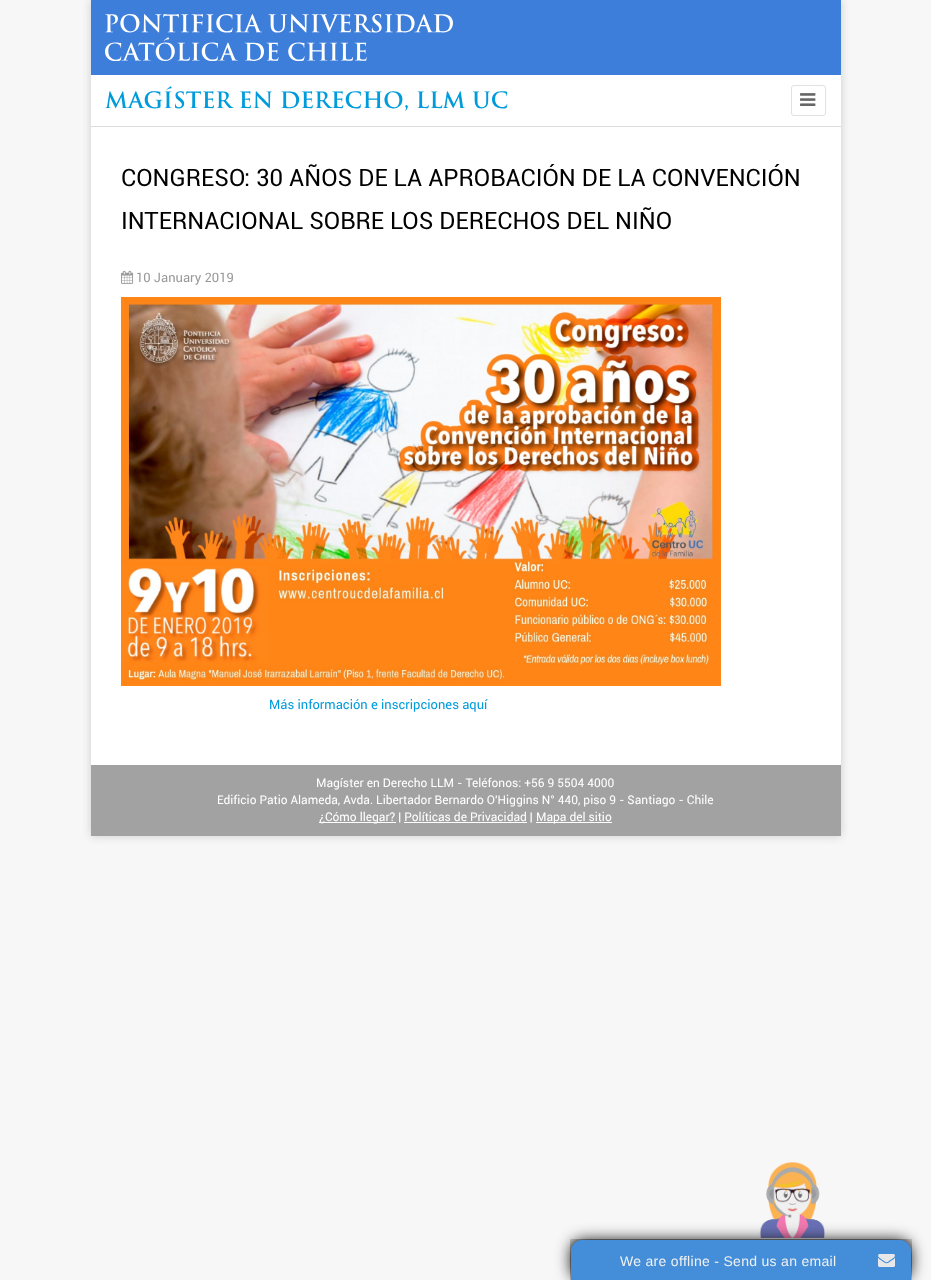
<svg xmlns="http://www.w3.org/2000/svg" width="931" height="1280">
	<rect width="100%" height="100%" fill="#F8F7F7" />
	<rect x="91" y="0" width="750" height="836" fill="#CCCCCC" filter="blur(5px)" />
	<rect x="91" y="75" width="750" height="690" fill="#FFFFFF" />
	<rect x="91" y="0" width="750" height="75" fill="#3D7EDB" />
	<image x="105" y="14" width="348" height="47" href="assets/img1.png" />
	<rect x="91" y="126" width="750" height="1" fill="#DDDDDD" />
	<text x="105" y="108" font-family="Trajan" font-size="22" font-weight="700" fill="#009BDB">MAGÍSTER EN DERECHO, LLM UC</text>
	<rect x="791.5" y="85.5" width="34" height="30" rx="2.5" fill="none" stroke="#E1E1E1" />
	<image x="800" y="93" width="16" height="13" href="assets/img2.png" />
	<g font-family="Roboto" font-size="24" fill="#000000">
		<text x="121" y="186">CONGRESO: 30 AÑOS DE LA APROBACIÓN DE LA CONVENCIÓN</text>
		<text x="121" y="229">INTERNACIONAL SOBRE LOS DERECHOS DEL NIÑO</text>
	</g>
	<image x="121" y="270" width="13" height="14" href="assets/img3.png" />
	<text x="136" y="282" font-family="Roboto" font-size="13" fill="#999999">10 January 2019</text>
	<image x="121" y="297" width="600" height="389" href="assets/img4.png" />
	<text x="269" y="709" font-family="Roboto" font-size="13" fill="#009BDB">Más información e inscripciones aquí</text>
	<rect x="91" y="765" width="750" height="71" fill="#A2A2A2" />
	<g font-family="Roboto" font-size="12" fill="#FFFFFF">
		<text x="316" y="787">Magíster en Derecho LLM - Teléfonos: +56 9 5504 4000</text>
		<text x="217" y="804">Edificio Patio Alameda, Avda. Libertador Bernardo O'Higgins N° 440, piso 9 - Santiago - Chile</text>
	</g>
	<rect x="319" y="822" width="77" height="1" fill="#FFFFFF" />
	<text x="319" y="821" font-family="Roboto" font-size="12" fill="#FFFFFF">¿Cómo llegar? | Políticas de Privacidad |</text>
	<rect x="536" y="822" width="76" height="1" fill="#FFFFFF" />
	<text x="536" y="821" font-family="Roboto" font-size="12" fill="#FFFFFF">Mapa del sitio</text>
	<rect x="404" y="822" width="123" height="1" fill="#FFFFFF" />
	<image x="759" y="1162" width="66" height="76" href="assets/img5.png" />
	<rect x="571" y="1240" width="340" height="40" rx="13" fill="#111111" filter="blur(7.5px)" />
	<image x="570" y="1239" width="342" height="41" href="assets/img6.png" />
	<path d="M582 1240H900C906 1240 911 1245 911 1251V1280H571V1251C571 1245 576 1240 582 1240Z" fill="#438DD9" />
	<text x="620" y="1266" font-family="Liberation Sans" font-size="14" letter-spacing="0.3" fill="#F1F1F1">We are offline - Send us an email</text>
	<image x="878" y="1254" width="17" height="13" href="assets/img7.png" />
</svg>
